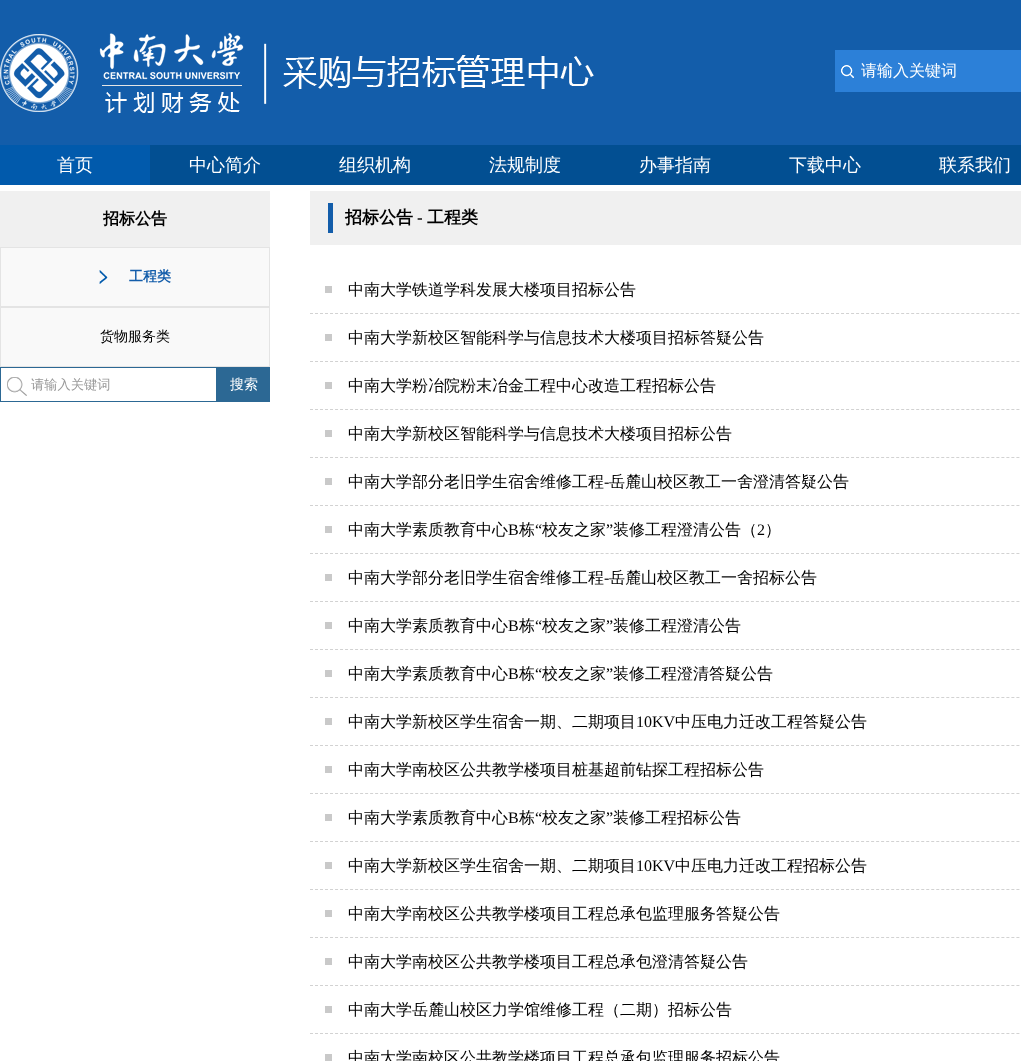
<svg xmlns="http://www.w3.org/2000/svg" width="1021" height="1061">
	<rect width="100%" height="100%" fill="#FFFFFF" />
	<rect x="0" y="0" width="1021" height="145" fill="#135DAA" />
	<image x="0" y="32" width="594" height="81" href="assets/img1.png" />
	<rect x="835" y="50" width="186" height="42" fill="#2C80D8" />
	<image x="841" y="65" width="13" height="13" href="assets/img2.png" />
	<text x="861" y="76" font-family="WenQuanYi Zen Hei" font-size="16" font-weight="500" fill="#FFFFFF">请输入关键词</text>
	<rect x="150" y="145" width="871" height="40" fill="#024F92" />
	<rect x="0" y="145" width="150" height="40" fill="#015AAC" />
	<g font-family="WenQuanYi Zen Hei" font-size="18" font-weight="500" fill="#FFFFFF">
		<text x="57" y="171">首页</text>
		<text x="189" y="171">中心简介</text>
		<text x="339" y="171">组织机构</text>
		<text x="489" y="171">法规制度</text>
		<text x="639" y="171">办事指南</text>
		<text x="789" y="171">下载中心</text>
		<text x="939" y="171">联系我们</text>
	</g>
	<rect x="0" y="191" width="270" height="56" fill="#F0F0F0" />
	<text x="103" y="224" font-family="WenQuanYi Zen Hei" font-size="16" font-weight="700" fill="#000000">招标公告</text>
	<rect x="0.5" y="247.5" width="269" height="59" fill="#F9F9F9" stroke="#E4E4E4" />
	<image x="99" y="270" width="9" height="14" href="assets/img3.png" />
	<text x="129" y="281" font-family="WenQuanYi Zen Hei" font-size="14" font-weight="700" fill="#135DAA">工程类</text>
	<rect x="0.5" y="307.5" width="269" height="59" fill="#F9F9F9" stroke="#E4E4E4" />
	<text x="100" y="341" font-family="WenQuanYi Zen Hei" font-size="14" font-weight="500" fill="#000000">货物服务类</text>
	<image x="7" y="377" width="20" height="19" href="assets/img4.png" />
	<rect x="0.5" y="367.5" width="216" height="34" fill="none" stroke="#2C6894" />
	<text x="31" y="389" font-family="WenQuanYi Zen Hei" font-size="13.25" font-weight="500" fill="#999999">请输入关键词</text>
	<rect x="217" y="367" width="53" height="35" fill="#2C6894" />
	<text x="230" y="389" font-family="WenQuanYi Zen Hei" font-size="14" font-weight="500" fill="#FFFFFF">搜索</text>
	<rect x="310" y="191" width="711" height="54" fill="#F0F0F0" />
	<rect x="328" y="203" width="5" height="30" fill="#135DAA" />
	<text x="345" y="223" font-family="WenQuanYi Zen Hei" font-size="17" font-weight="700" fill="#000000">招标公告</text>
	<text x="417" y="223" font-family="Liberation Serif" font-size="17" font-weight="700" fill="#000000">-</text>
	<text x="427" y="223" font-family="WenQuanYi Zen Hei" font-size="17" font-weight="700" fill="#000000">工程类</text>
	<rect x="325" y="286" width="7" height="7" fill="#C9C9C9" />
	<path d="M310 313.5H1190" fill="none" stroke="#D2D2D2" stroke-dasharray="3 2.01" />
	<text x="348" y="295" font-family="WenQuanYi Zen Hei" font-size="16" font-weight="500" fill="#000000">中南大学铁道学科发展大楼项目招标公告</text>
	<rect x="325" y="334" width="7" height="7" fill="#C9C9C9" />
	<path d="M310 361.5H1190" fill="none" stroke="#D2D2D2" stroke-dasharray="3 2.01" />
	<text x="348" y="343" font-family="WenQuanYi Zen Hei" font-size="16" font-weight="500" fill="#000000">中南大学新校区智能科学与信息技术大楼项目招标答疑公告</text>
	<rect x="325" y="382" width="7" height="7" fill="#C9C9C9" />
	<path d="M310 409.5H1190" fill="none" stroke="#D2D2D2" stroke-dasharray="3 2.01" />
	<text x="348" y="391" font-family="WenQuanYi Zen Hei" font-size="16" font-weight="500" fill="#000000">中南大学粉冶院粉末冶金工程中心改造工程招标公告</text>
	<rect x="325" y="430" width="7" height="7" fill="#C9C9C9" />
	<path d="M310 457.5H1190" fill="none" stroke="#D2D2D2" stroke-dasharray="3 2.01" />
	<text x="348" y="439" font-family="WenQuanYi Zen Hei" font-size="16" font-weight="500" fill="#000000">中南大学新校区智能科学与信息技术大楼项目招标公告</text>
	<rect x="325" y="478" width="7" height="7" fill="#C9C9C9" />
	<path d="M310 505.5H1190" fill="none" stroke="#D2D2D2" stroke-dasharray="3 2.01" />
	<text x="348" y="487" font-family="WenQuanYi Zen Hei" font-size="16" font-weight="500" fill="#000000">中南大学部分老旧学生宿舍维修工程</text>
	<text x="604" y="487" font-family="Liberation Serif" font-size="16" fill="#000000">-</text>
	<text x="609" y="487" font-family="WenQuanYi Zen Hei" font-size="16" font-weight="500" fill="#000000">岳麓山校区教工一舍澄清答疑公告</text>
	<rect x="325" y="526" width="7" height="7" fill="#C9C9C9" />
	<path d="M310 553.5H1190" fill="none" stroke="#D2D2D2" stroke-dasharray="3 2.01" />
	<text x="348" y="535" font-family="WenQuanYi Zen Hei" font-size="16" font-weight="500" fill="#000000">中南大学素质教育中心</text>
	<text x="508" y="535" font-family="Liberation Serif" font-size="16" fill="#000000">B</text>
	<text x="519" y="535" font-family="WenQuanYi Zen Hei" font-size="16" font-weight="500" fill="#000000">栋</text>
	<text x="535" y="535" font-family="Liberation Serif" font-size="16" fill="#000000">“</text>
	<text x="542" y="535" font-family="WenQuanYi Zen Hei" font-size="16" font-weight="500" fill="#000000">校友之家</text>
	<text x="606" y="535" font-family="Liberation Serif" font-size="16" fill="#000000">”</text>
	<text x="613" y="535" font-family="WenQuanYi Zen Hei" font-size="16" font-weight="500" fill="#000000">装修工程澄清公告（</text>
	<text x="757" y="535" font-family="Liberation Serif" font-size="16" fill="#000000">2</text>
	<text x="765" y="535" font-family="WenQuanYi Zen Hei" font-size="16" font-weight="500" fill="#000000">）</text>
	<rect x="325" y="574" width="7" height="7" fill="#C9C9C9" />
	<path d="M310 601.5H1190" fill="none" stroke="#D2D2D2" stroke-dasharray="3 2.01" />
	<text x="348" y="583" font-family="WenQuanYi Zen Hei" font-size="16" font-weight="500" fill="#000000">中南大学部分老旧学生宿舍维修工程</text>
	<text x="604" y="583" font-family="Liberation Serif" font-size="16" fill="#000000">-</text>
	<text x="609" y="583" font-family="WenQuanYi Zen Hei" font-size="16" font-weight="500" fill="#000000">岳麓山校区教工一舍招标公告</text>
	<rect x="325" y="622" width="7" height="7" fill="#C9C9C9" />
	<path d="M310 649.5H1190" fill="none" stroke="#D2D2D2" stroke-dasharray="3 2.01" />
	<text x="348" y="631" font-family="WenQuanYi Zen Hei" font-size="16" font-weight="500" fill="#000000">中南大学素质教育中心</text>
	<text x="508" y="631" font-family="Liberation Serif" font-size="16" fill="#000000">B</text>
	<text x="519" y="631" font-family="WenQuanYi Zen Hei" font-size="16" font-weight="500" fill="#000000">栋</text>
	<text x="535" y="631" font-family="Liberation Serif" font-size="16" fill="#000000">“</text>
	<text x="542" y="631" font-family="WenQuanYi Zen Hei" font-size="16" font-weight="500" fill="#000000">校友之家</text>
	<text x="606" y="631" font-family="Liberation Serif" font-size="16" fill="#000000">”</text>
	<text x="613" y="631" font-family="WenQuanYi Zen Hei" font-size="16" font-weight="500" fill="#000000">装修工程澄清公告</text>
	<rect x="325" y="670" width="7" height="7" fill="#C9C9C9" />
	<path d="M310 697.5H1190" fill="none" stroke="#D2D2D2" stroke-dasharray="3 2.01" />
	<text x="348" y="679" font-family="WenQuanYi Zen Hei" font-size="16" font-weight="500" fill="#000000">中南大学素质教育中心</text>
	<text x="508" y="679" font-family="Liberation Serif" font-size="16" fill="#000000">B</text>
	<text x="519" y="679" font-family="WenQuanYi Zen Hei" font-size="16" font-weight="500" fill="#000000">栋</text>
	<text x="535" y="679" font-family="Liberation Serif" font-size="16" fill="#000000">“</text>
	<text x="542" y="679" font-family="WenQuanYi Zen Hei" font-size="16" font-weight="500" fill="#000000">校友之家</text>
	<text x="606" y="679" font-family="Liberation Serif" font-size="16" fill="#000000">”</text>
	<text x="613" y="679" font-family="WenQuanYi Zen Hei" font-size="16" font-weight="500" fill="#000000">装修工程澄清答疑公告</text>
	<rect x="325" y="718" width="7" height="7" fill="#C9C9C9" />
	<path d="M310 745.5H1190" fill="none" stroke="#D2D2D2" stroke-dasharray="3 2.01" />
	<text x="348" y="727" font-family="WenQuanYi Zen Hei" font-size="16" font-weight="500" fill="#000000">中南大学新校区学生宿舍一期、二期项目</text>
	<text x="636" y="727" font-family="Liberation Serif" font-size="16" fill="#000000">10KV</text>
	<text x="675" y="727" font-family="WenQuanYi Zen Hei" font-size="16" font-weight="500" fill="#000000">中压电力迁改工程答疑公告</text>
	<rect x="325" y="766" width="7" height="7" fill="#C9C9C9" />
	<path d="M310 793.5H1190" fill="none" stroke="#D2D2D2" stroke-dasharray="3 2.01" />
	<text x="348" y="775" font-family="WenQuanYi Zen Hei" font-size="16" font-weight="500" fill="#000000">中南大学南校区公共教学楼项目桩基超前钻探工程招标公告</text>
	<rect x="325" y="814" width="7" height="7" fill="#C9C9C9" />
	<path d="M310 841.5H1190" fill="none" stroke="#D2D2D2" stroke-dasharray="3 2.01" />
	<text x="348" y="823" font-family="WenQuanYi Zen Hei" font-size="16" font-weight="500" fill="#000000">中南大学素质教育中心</text>
	<text x="508" y="823" font-family="Liberation Serif" font-size="16" fill="#000000">B</text>
	<text x="519" y="823" font-family="WenQuanYi Zen Hei" font-size="16" font-weight="500" fill="#000000">栋</text>
	<text x="535" y="823" font-family="Liberation Serif" font-size="16" fill="#000000">“</text>
	<text x="542" y="823" font-family="WenQuanYi Zen Hei" font-size="16" font-weight="500" fill="#000000">校友之家</text>
	<text x="606" y="823" font-family="Liberation Serif" font-size="16" fill="#000000">”</text>
	<text x="613" y="823" font-family="WenQuanYi Zen Hei" font-size="16" font-weight="500" fill="#000000">装修工程招标公告</text>
	<rect x="325" y="862" width="7" height="7" fill="#C9C9C9" />
	<path d="M310 889.5H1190" fill="none" stroke="#D2D2D2" stroke-dasharray="3 2.01" />
	<text x="348" y="871" font-family="WenQuanYi Zen Hei" font-size="16" font-weight="500" fill="#000000">中南大学新校区学生宿舍一期、二期项目</text>
	<text x="636" y="871" font-family="Liberation Serif" font-size="16" fill="#000000">10KV</text>
	<text x="675" y="871" font-family="WenQuanYi Zen Hei" font-size="16" font-weight="500" fill="#000000">中压电力迁改工程招标公告</text>
	<rect x="325" y="910" width="7" height="7" fill="#C9C9C9" />
	<path d="M310 937.5H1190" fill="none" stroke="#D2D2D2" stroke-dasharray="3 2.01" />
	<text x="348" y="919" font-family="WenQuanYi Zen Hei" font-size="16" font-weight="500" fill="#000000">中南大学南校区公共教学楼项目工程总承包监理服务答疑公告</text>
	<rect x="325" y="958" width="7" height="7" fill="#C9C9C9" />
	<path d="M310 985.5H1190" fill="none" stroke="#D2D2D2" stroke-dasharray="3 2.01" />
	<text x="348" y="967" font-family="WenQuanYi Zen Hei" font-size="16" font-weight="500" fill="#000000">中南大学南校区公共教学楼项目工程总承包澄清答疑公告</text>
	<rect x="325" y="1006" width="7" height="7" fill="#C9C9C9" />
	<path d="M310 1033.5H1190" fill="none" stroke="#D2D2D2" stroke-dasharray="3 2.01" />
	<text x="348" y="1015" font-family="WenQuanYi Zen Hei" font-size="16" font-weight="500" fill="#000000">中南大学岳麓山校区力学馆维修工程（二期）招标公告</text>
	<rect x="325" y="1054" width="7" height="7" fill="#C9C9C9" />
	<text x="348" y="1063" font-family="WenQuanYi Zen Hei" font-size="16" font-weight="500" fill="#000000">中南大学南校区公共教学楼项目工程总承包监理服务招标公告</text>
</svg>
